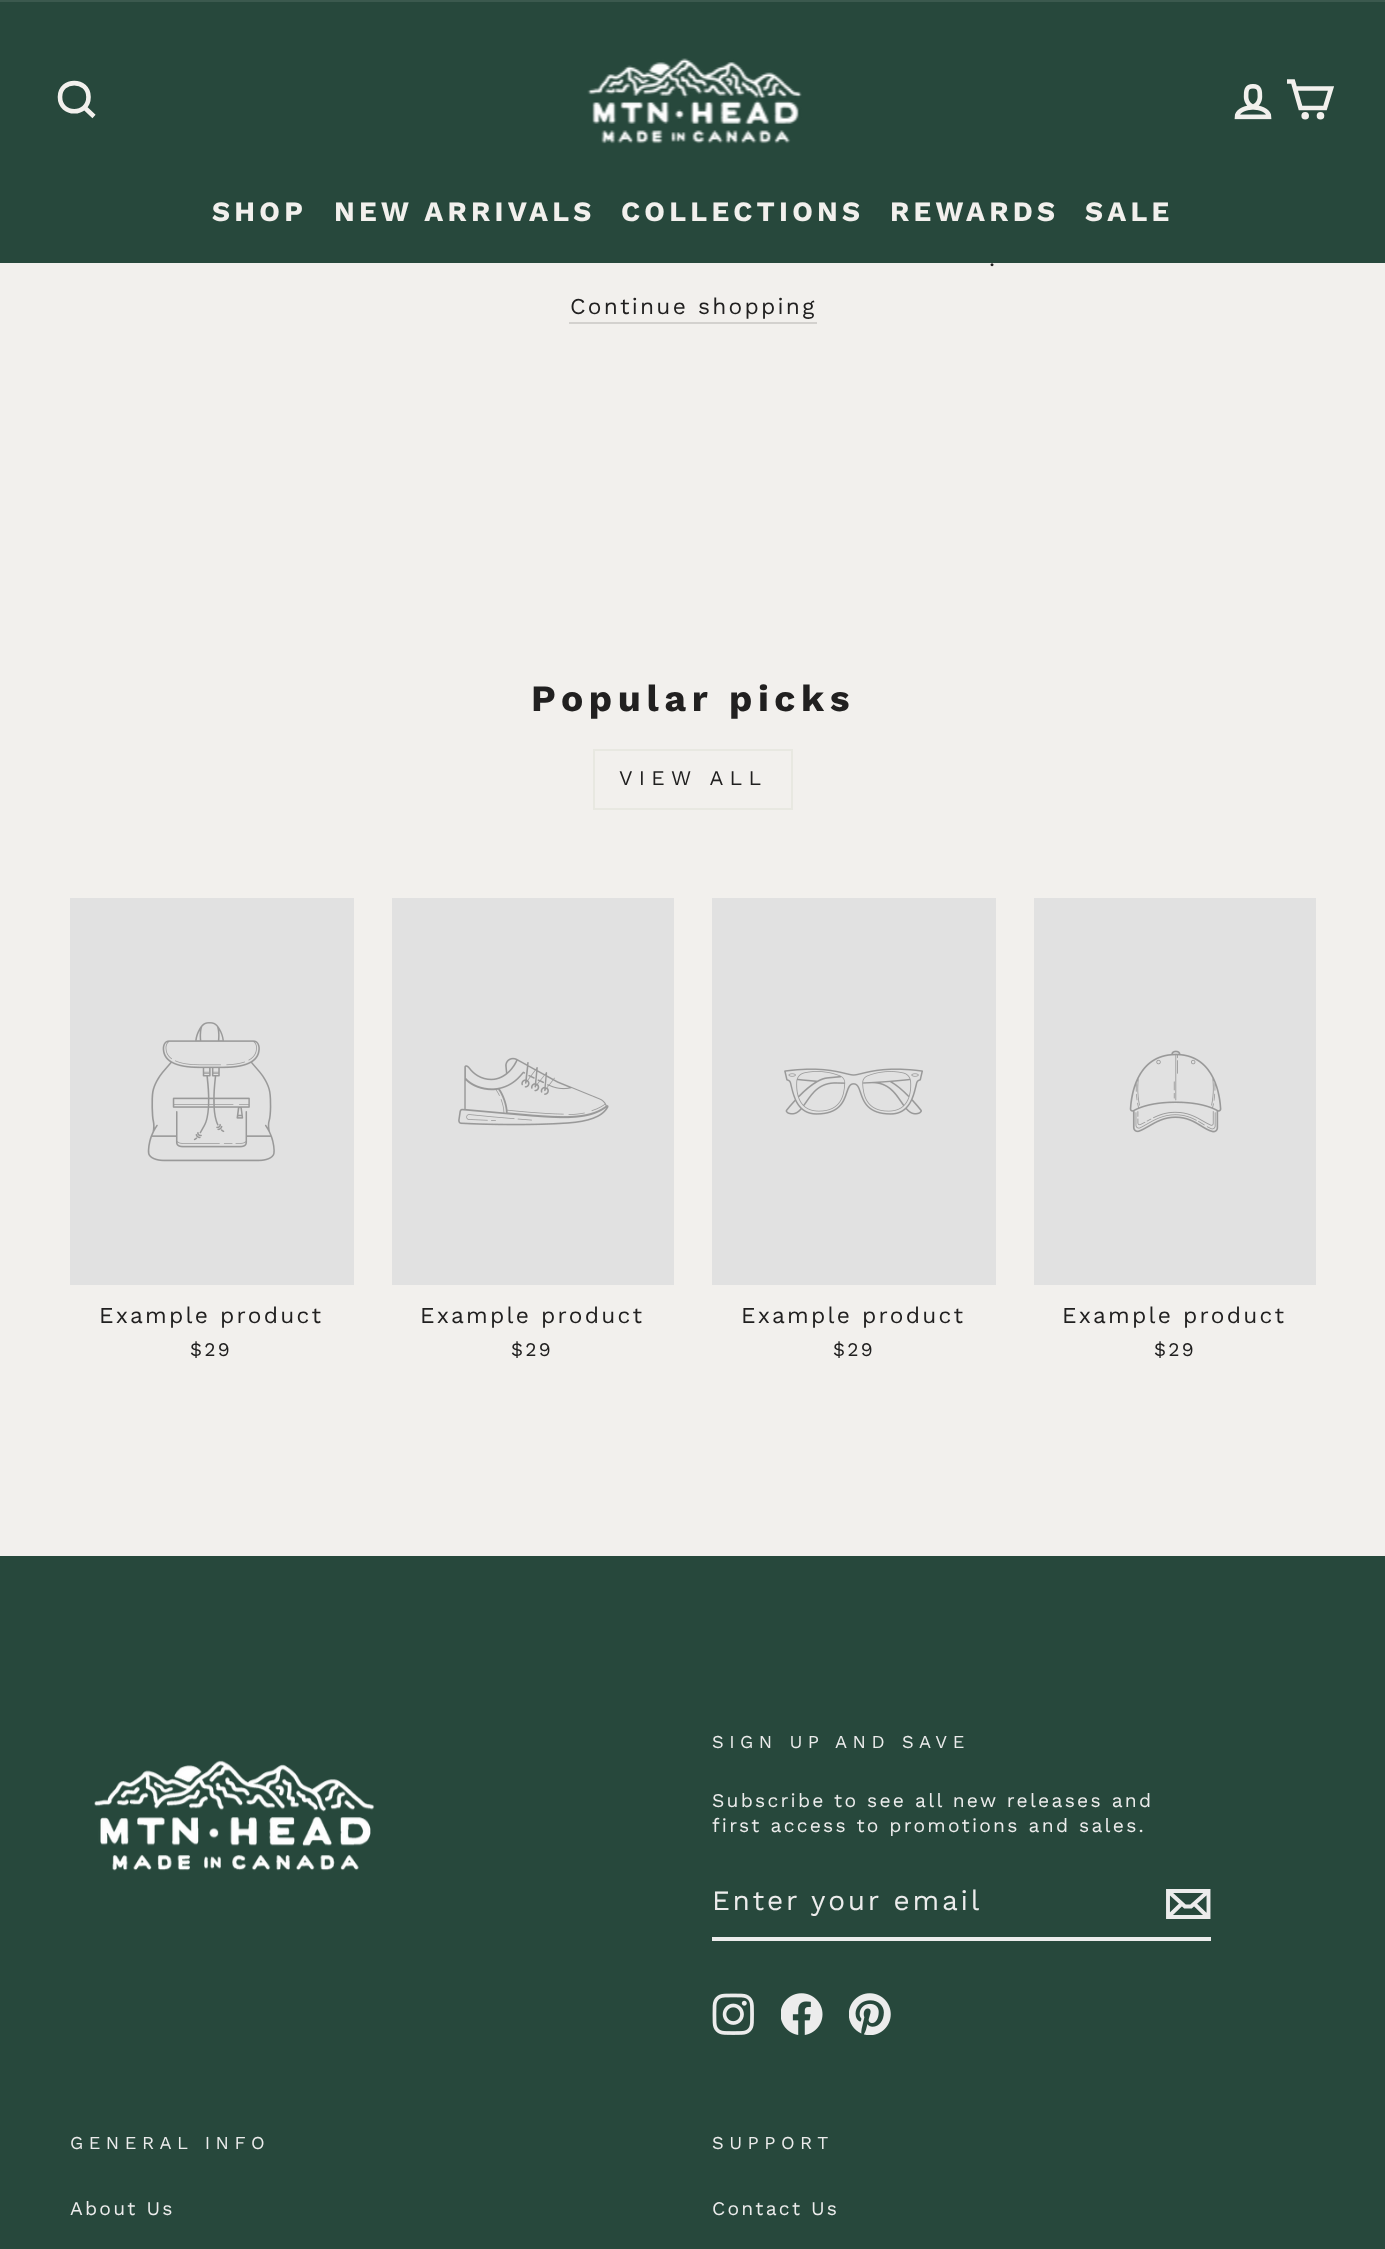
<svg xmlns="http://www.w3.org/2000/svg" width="1385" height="2249">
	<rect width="100%" height="100%" fill="#F2F0ED" />
	<rect x="0" y="2" width="1385" height="261" fill="#27483C" />
	<rect x="0" y="0" width="1385" height="2" fill="#3B594E" />
	<path d="M88.5 97C88.5 116 60 116 60 97C60 78.5 88.5 78.5 88.5 97ZM94 116.5L84.5 107.5" fill="none" stroke="#F2F0ED" stroke-width="4.6" />
	<image x="587" y="58" width="215" height="86" href="assets/img1.png" />
	<image x="1234" y="84" width="38" height="36" href="assets/img2.png" />
	<path d="M1295 88.5H1331L1325 108H1300.5L1293 81.5H1287" fill="none" stroke="#F2F0ED" stroke-width="4.6" />
	<circle cx="1305.2" cy="115.8" r="1.5" fill="#F2F0ED" stroke="#F2F0ED" stroke-width="4.6" />
	<circle cx="1320.5" cy="115.8" r="1.5" fill="#F2F0ED" stroke="#F2F0ED" stroke-width="4.6" />
	<g font-family="Work Sans" font-size="28" font-weight="700" letter-spacing="4.25" fill="#F2F0ED">
		<text x="212" y="221">SHOP</text>
		<text x="334" y="221">NEW ARRIVALS</text>
		<text x="621" y="221">COLLECTIONS</text>
		<text x="890" y="221">REWARDS</text>
		<text x="1085" y="221">SALE</text>
	</g>
	<text x="989" y="266" font-family="Work Sans" font-size="22.75" letter-spacing="2.25" fill="#212020">.</text>
	<rect x="569" y="322" width="248" height="2" fill="#D3D1CE" />
	<text x="570" y="314" font-family="Work Sans" font-size="22.75" letter-spacing="2.25" fill="#212020">Continue shopping</text>
	<text x="531" y="711" font-family="Work Sans" font-size="37.25" font-weight="700" letter-spacing="5.6" fill="#212020">Popular picks</text>
	<rect x="594" y="750" width="198" height="59" fill="none" stroke="#E8E8E1" stroke-width="2" />
	<text x="619" y="785" font-family="Work Sans" font-size="21" letter-spacing="6.25" fill="#212020">VIEW ALL</text>
	<rect x="70" y="898" width="284" height="387" fill="#E1E1E1" />
	<image x="147" y="1022" width="128" height="140" href="assets/img3.png" />
	<text x="99" y="1323" font-family="Work Sans" font-size="22.75" letter-spacing="2.25" fill="#212020">Example product</text>
	<text x="190" y="1356" font-family="Work Sans" font-size="19.3" letter-spacing="2.25" fill="#212020">$29</text>
	<rect x="392" y="898" width="282" height="387" fill="#E1E1E1" />
	<image x="458" y="1057" width="151" height="69" href="assets/img4.png" />
	<text x="420" y="1323" font-family="Work Sans" font-size="22.75" letter-spacing="2.25" fill="#212020">Example product</text>
	<text x="511" y="1356" font-family="Work Sans" font-size="19.3" letter-spacing="2.25" fill="#212020">$29</text>
	<rect x="712" y="898" width="284" height="387" fill="#E1E1E1" />
	<image x="784" y="1068" width="139" height="47" href="assets/img5.png" />
	<text x="741" y="1323" font-family="Work Sans" font-size="22.75" letter-spacing="2.25" fill="#212020">Example product</text>
	<text x="833" y="1356" font-family="Work Sans" font-size="19.3" letter-spacing="2.25" fill="#212020">$29</text>
	<rect x="1034" y="898" width="282" height="387" fill="#E1E1E1" />
	<image x="1129" y="1050" width="93" height="83" href="assets/img6.png" />
	<text x="1062" y="1323" font-family="Work Sans" font-size="22.75" letter-spacing="2.25" fill="#212020">Example product</text>
	<text x="1154" y="1356" font-family="Work Sans" font-size="19.3" letter-spacing="2.25" fill="#212020">$29</text>
	<rect x="0" y="1556" width="1385" height="693" fill="#27483C" />
	<image x="94" y="1760" width="281" height="111" href="assets/img7.png" />
	<text x="712" y="1748" font-family="Work Sans" font-size="18.25" letter-spacing="5.5" fill="#ECECEC">SIGN UP AND SAVE</text>
	<g font-family="Work Sans" font-size="19.3" letter-spacing="2.25" fill="#ECECEC">
		<text x="712" y="1807">Subscribe to see all new releases and</text>
		<text x="712" y="1832">first access to promotions and sales.</text>
	</g>
	<rect x="712" y="1937" width="499" height="4" fill="#ECECEC" />
	<text x="712" y="1910" font-family="Work Sans" font-size="28" letter-spacing="2.75" fill="#ECECEC">Enter your email</text>
	<path d="M1208.5 1917H1168V1891H1208.5ZM1168 1891L1185 1906.5H1191L1208.5 1891M1181.5 1904L1168.5 1916.5M1208 1917L1194.5 1904" fill="none" stroke="#ECECEC" stroke-width="3.9" />
	<image x="712" y="1993" width="42" height="42" href="assets/img8.png" />
	<image x="781" y="1993" width="42" height="42" href="assets/img9.png" />
	<image x="849" y="1993" width="42" height="42" href="assets/img10.png" />
	<text x="70" y="2149" font-family="Work Sans" font-size="18.25" letter-spacing="5.5" fill="#ECECEC">GENERAL INFO</text>
	<text x="70" y="2215" font-family="Work Sans" font-size="19.3" letter-spacing="2.25" fill="#ECECEC">About Us</text>
	<text x="712" y="2149" font-family="Work Sans" font-size="18.25" letter-spacing="5.5" fill="#ECECEC">SUPPORT</text>
	<text x="712" y="2215" font-family="Work Sans" font-size="19.3" letter-spacing="2.25" fill="#ECECEC">Contact Us</text>
</svg>
